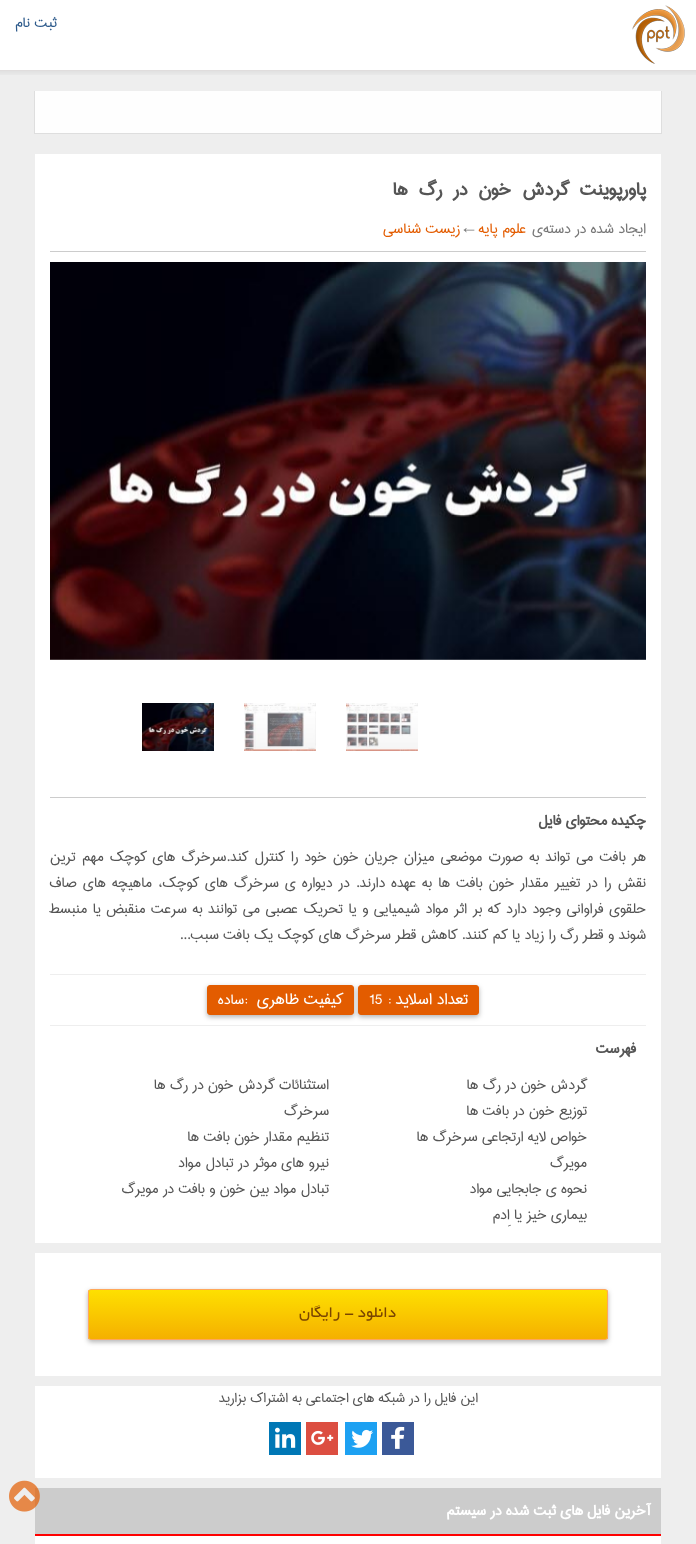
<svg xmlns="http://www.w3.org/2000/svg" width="696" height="1544">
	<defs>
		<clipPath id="clip1"><rect x="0" y="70" width="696" height="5" /></clipPath>
		<clipPath id="clip2"><rect x="88" y="1289" width="520" height="51" rx="3" /></clipPath>
		<linearGradient id="g1" gradientUnits="userSpaceOnUse" x1="348" y1="1290" x2="348" y2="1339"><stop offset="0" stop-color="#FEE000" /><stop offset="1" stop-color="#F5B000" /></linearGradient>
	</defs>
	<rect width="100%" height="100%" fill="#EEEEEE" />
	<rect x="0" y="0" width="696" height="70" fill="#FFFFFF" />
	<rect x="0" y="70" width="696" height="1" fill="#EDEAEA" />
	<g clip-path="url(#clip1)">
		<rect x="-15" y="1" width="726" height="70" fill="#000000" fill-opacity="0.1" filter="blur(5px)" />
	</g>
	<image x="632" y="5" width="53" height="59" href="assets/img1.png" />
	<text x="57" y="27" font-family="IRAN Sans" font-size="18" direction="rtl" fill="#2D5A8B">ثبت نام</text>
	<rect x="35" y="91" width="626" height="42" fill="#FEFEFE" />
	<rect x="661" y="91" width="1" height="43" fill="#DEDEDE" />
	<rect x="34" y="133" width="628" height="1" fill="#DEDEDE" />
	<rect x="34" y="91" width="1" height="43" fill="#DEDEDE" />
	<rect x="35" y="154" width="626" height="1222" fill="#FFFFFF" />
	<text x="646" y="195" word-spacing="5.5" font-family="IRAN Sans" font-size="23" font-weight="700" letter-spacing="-1" direction="rtl" fill="#555555">پاورپوینت گردش خون در رگ ها</text>
	<text x="646" y="233" font-family="IRAN Sans" font-size="18" direction="rtl" fill="#777777">ایجاد شده در دسته‌ی</text>
	<text x="526" y="233" font-family="IRAN Sans" font-size="18" direction="rtl" fill="#E35C00">علوم پایه</text>
	<text x="460" y="233" font-family="Liberation Serif" font-size="18" fill="#777777">←</text>
	<text x="460" y="233" font-family="IRAN Sans" font-size="18" direction="rtl" fill="#E35C00">زیست شناسی</text>
	<rect x="50" y="251" width="596" height="1" fill="#CCCCCC" />
	<rect x="50" y="797" width="596" height="1" fill="#CCCCCC" />
	<image x="50" y="262" width="596" height="398" href="assets/img2.png" />
	<image x="346" y="703" width="72" height="48" href="assets/img3.png" />
	<image x="244" y="703" width="72" height="48" href="assets/img4.png" />
	<image x="142" y="703" width="72" height="48" href="assets/img5.png" />
	<text x="646" y="825" font-family="IRAN Sans" font-size="18" font-weight="700" direction="rtl" fill="#555555">‌چکیده محتوای فایل</text>
	<g font-family="IRAN Sans" font-size="18" direction="rtl" fill="#555555">
		<text x="646" y="861" word-spacing="1.75">هر بافت می تواند به صورت موضعی میزان جریان خون خود را کنترل کند.سرخرگ های کوچک مهم ترین</text>
		<text x="646" y="887" word-spacing="1.75">نقش را در تغییر مقدار خون بافت ها به عهده دارند. در دیواره ی سرخرگ های کوچک، ماهیچه های صاف</text>
		<text x="646" y="913" word-spacing="1.2">حلقوی فراوانی وجود دارد که بر اثر مواد شیمیایی و یا تحریک عصبی می توانند به سرعت منقبض یا منبسط</text>
		<text x="646" y="939">شوند و قطر رگ را زیاد یا کم کنند. کاهش قطر سرخرگ های کوچک یک بافت سبب...</text>
	</g>
	<rect x="50" y="974" width="596" height="1" fill="#EEEEEE" />
	<rect x="50" y="1025" width="596" height="1" fill="#EEEEEE" />
	<rect x="207" y="987" width="147" height="30" rx="3" fill="#000000" fill-opacity="0.3" filter="blur(2.5px)" />
	<rect x="207.5" y="985.5" width="146" height="29" rx="2.5" fill="#E35C00" stroke="#E35C00" />
	<rect x="358" y="987" width="121" height="30" rx="3" fill="#000000" fill-opacity="0.3" filter="blur(2.5px)" />
	<rect x="358.5" y="985.5" width="120" height="29" rx="2.5" fill="#E35C00" stroke="#E35C00" />
	<text x="468" y="1004" font-family="IRAN Sans" font-size="20" direction="rtl" fill="#FFFFFF">تعداد اسلاید :</text>
	<text x="369" y="1004" font-family="IRAN Sans" font-size="18" fill="#FFFFFF">15</text>
	<text x="343" y="1004" font-family="IRAN Sans" font-size="20" direction="rtl" fill="#FFFFFF">کیفیت ظاهری</text>
	<text x="244" y="1004" font-family="IRAN Sans" font-size="20" fill="#FFFFFF">:</text>
	<text x="244" y="1004" font-family="IRAN Sans" font-size="18" direction="rtl" fill="#FFFFFF">ساده</text>
	<text x="636" y="1053" font-family="IRAN Sans" font-size="18" font-weight="700" direction="rtl" fill="#555555">‌فهرست</text>
	<g font-family="IRAN Sans" font-size="18" direction="rtl" fill="#555555">
		<text x="587" y="1089">گردش خون در رگ ها</text>
		<text x="329" y="1089">استثنائات گردش خون در رگ ها</text>
		<text x="587" y="1115">توزیع خون در بافت ها</text>
		<text x="329" y="1115">سرخرگ</text>
		<text x="587" y="1141">خواص لایه ارتجاعی سرخرگ ها</text>
		<text x="329" y="1141">تنظیم مقدار خون بافت ها</text>
		<text x="587" y="1167">مویرگ</text>
		<text x="329" y="1167">نیرو های موثر در تبادل مواد</text>
		<text x="587" y="1193">نحوه ی جابجایی مواد</text>
		<text x="329" y="1193">تبادل مواد بین خون و بافت در مویرگ</text>
		<text x="587" y="1219">بیماری خیز یا اِدم</text>
	</g>
	<rect x="35" y="1243" width="626" height="10" fill="#EEEEEE" />
	<rect x="88" y="1291" width="520" height="51" rx="3" fill="#000000" fill-opacity="0.3" filter="blur(2.5px)" />
	<g clip-path="url(#clip2)">
		<rect x="88" y="1290" width="520" height="49" fill="url(#g1)" />
	</g>
	<rect x="88.5" y="1289.5" width="519" height="50" rx="2.5" fill="none" stroke="#FFA75B" />
	<text x="396" y="1317" font-family="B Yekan" font-size="17" direction="rtl" fill="#7A4500">دانلود - رایگان</text>
	<rect x="35" y="1386" width="626" height="158" fill="#FFFFFF" />
	<text x="478" y="1402" font-family="IRAN Sans" font-size="17" direction="rtl" fill="#555555">این فایل را در شبکه های اجتماعی به اشتراک بزارید</text>
	<image x="382" y="1422" width="32" height="33" href="assets/img6.png" />
	<image x="345" y="1422" width="32" height="33" href="assets/img7.png" />
	<image x="306" y="1422" width="32" height="33" href="assets/img8.png" />
	<image x="269" y="1422" width="32" height="33" href="assets/img9.png" />
	<rect x="35" y="1478" width="626" height="10" fill="#EEEEEE" />
	<rect x="35" y="1488" width="626" height="46" fill="#CCCCCC" />
	<rect x="35" y="1534" width="626" height="2" fill="#FF0000" />
	<text x="651" y="1515" font-family="IRAN Sans" font-size="18" font-weight="700" direction="rtl" fill="#FFFFFF">آخرین فایل های ثبت شده در سیستم</text>
	<image x="9" y="1480" width="31" height="32" href="assets/img10.png" />
</svg>
